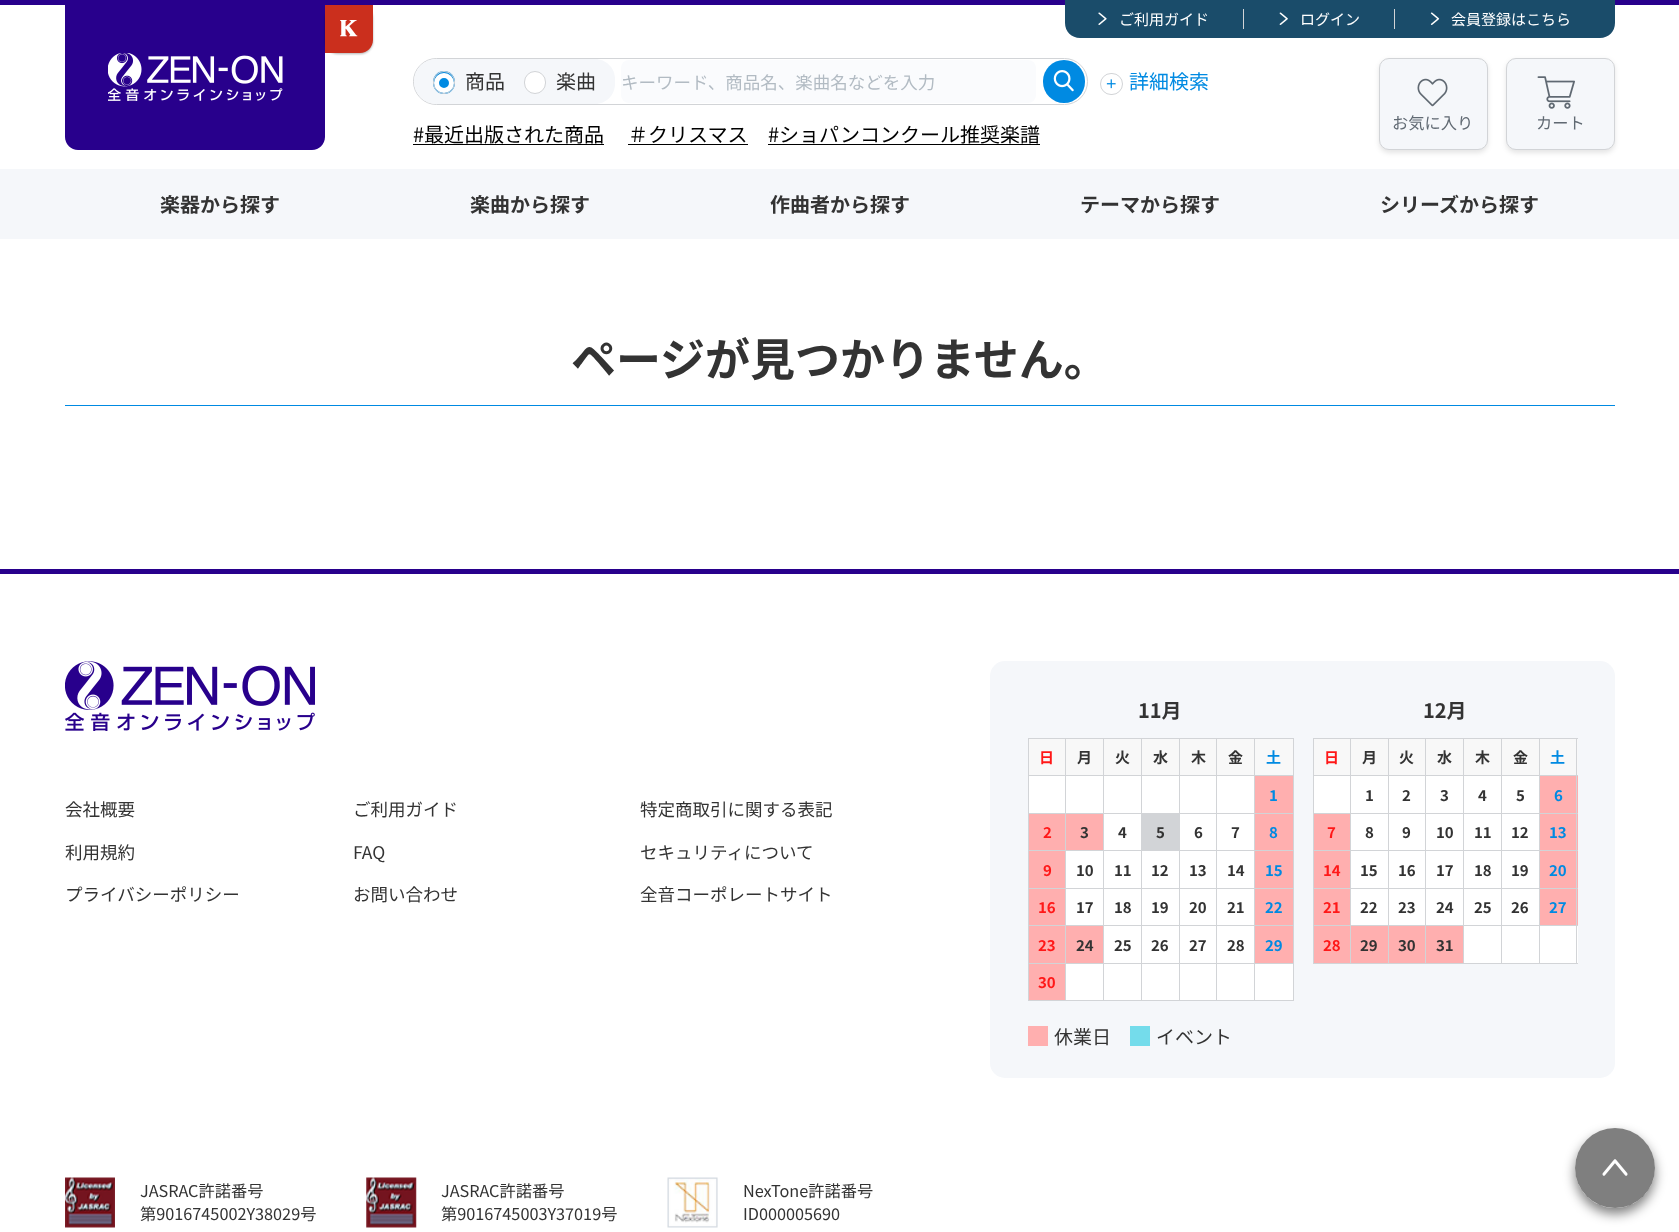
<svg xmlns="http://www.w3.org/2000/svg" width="1679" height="1232">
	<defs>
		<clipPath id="clip1"><path d="M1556 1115H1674V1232H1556ZM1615 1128C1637 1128 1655 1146 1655 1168C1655 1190 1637 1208 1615 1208C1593 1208 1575 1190 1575 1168C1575 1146 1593 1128 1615 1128Z" clip-rule="evenodd" /></clipPath>
	</defs>
	<rect width="100%" height="100%" fill="#FFFFFF" />
	<rect x="0" y="0" width="1679" height="5" fill="#28008C" />
	<path d="M65 5H325V137C325 144 319 150 312 150H78C71 150 65 144 65 137Z" fill="#28008C" />
	<image x="108" y="53" width="175" height="48" href="assets/img1.png" />
	<rect x="325" y="6" width="48" height="48" rx="13" fill="#000000" fill-opacity="0.3" filter="blur(1px)" />
	<path d="M325 5H373V40C373 47 367 53 360 53H325Z" fill="#CB2F1D" />
	<image x="340" y="20" width="18" height="17" href="assets/img2.png" />
	<path d="M1065 0H1615V23C1615 31.5 1608.5 38 1600 38H1080C1071.5 38 1065 31.5 1065 23Z" fill="#1A4C6A" />
	<image x="1098" y="12" width="9" height="13" href="assets/img3.png" />
	<text x="1119" y="25" font-family="Noto Sans JP" font-size="15" fill="#FFFFFF">ご利用ガイド</text>
	<rect x="1243" y="9" width="1" height="20" fill="#D2D4D7" />
	<image x="1279" y="12" width="9" height="13" href="assets/img4.png" />
	<text x="1300" y="25" font-family="Noto Sans JP" font-size="15" fill="#FFFFFF">ログイン</text>
	<rect x="1394" y="9" width="1" height="20" fill="#D2D4D7" />
	<image x="1430" y="12" width="10" height="13" href="assets/img5.png" />
	<text x="1451" y="25" font-family="Noto Sans JP" font-size="15" fill="#FFFFFF">会員登録はこちら</text>
	<rect x="413.5" y="58.5" width="674" height="46" rx="23" fill="none" stroke="#D2D4D7" />
	<path d="M436.5 59H595C606 59 615 68 615 79V84C615 95 606 104 595 104H436.5C424 104 414 94 414 81.5C414 69 424 59 436.5 59Z" fill="#F5F7FA" />
	<rect x="433" y="71" width="22" height="23" rx="11" fill="#008AE2" />
	<circle cx="444" cy="83" r="7.5" fill="none" stroke="#FFFFFF" stroke-width="5" />
	<rect x="433.5" y="71.5" width="21" height="22" rx="10.5" fill="none" stroke="#D2D4D7" />
	<text x="465" y="89" font-family="Noto Sans JP" font-size="20" fill="#333333">商品</text>
	<rect x="524.5" y="71.5" width="21" height="22" rx="10.5" fill="#FFFFFF" stroke="#D2D4D7" />
	<text x="556" y="89" font-family="Noto Sans JP" font-size="20" fill="#333333">楽曲</text>
	<rect x="621" y="60" width="415" height="43" rx="8" fill="#FAFBFD" />
	<text x="621" y="89" font-family="Noto Sans JP" font-size="17.5" fill="#B2BBC3">キーワード、商品名、楽曲名などを入力</text>
	<rect x="1043" y="60" width="42" height="43" rx="21" fill="#008AE2" />
	<image x="1053" y="70" width="21" height="22" href="assets/img6.png" />
	<rect x="1100.5" y="73.5" width="22" height="21" rx="10.5" fill="none" stroke="#D2D4D7" />
	<image x="1106" y="79" width="10" height="10" href="assets/img7.png" />
	<text x="1129" y="89" font-family="Noto Sans JP" font-size="20" fill="#008AE2">詳細検索</text>
	<text x="413" y="142" font-family="Noto Sans JP" font-size="20" fill="#000000">#最近出版された商品</text>
	<rect x="413" y="144" width="191" height="1" fill="#000000" />
	<text x="628" y="142" font-family="Noto Sans JP" font-size="20" fill="#000000">＃クリスマス</text>
	<rect x="628" y="144" width="120" height="1" fill="#000000" />
	<text x="768" y="142" font-family="Noto Sans JP" font-size="20" fill="#000000">#ショパンコンクール推奨楽譜</text>
	<rect x="768" y="144" width="272" height="1" fill="#000000" />
	<rect x="1379" y="60" width="109" height="93" rx="10" fill="#000000" fill-opacity="0.1" filter="blur(2.5px)" />
	<rect x="1379.5" y="58.5" width="108" height="91" rx="9.5" fill="#F5F7FA" stroke="#D2D4D7" />
	<image x="1417" y="78" width="31" height="29" href="assets/img8.png" />
	<text x="1392" y="129" font-family="Noto Sans JP" font-size="16.25" fill="#606972">お気に入り</text>
	<rect x="1506" y="60" width="109" height="93" rx="10" fill="#000000" fill-opacity="0.1" filter="blur(2.5px)" />
	<rect x="1506.5" y="58.5" width="108" height="91" rx="9.5" fill="#F5F7FA" stroke="#D2D4D7" />
	<image x="1537" y="76" width="38" height="33" href="assets/img9.png" />
	<text x="1536" y="129" font-family="Noto Sans JP" font-size="16.25" fill="#606972">カート</text>
	<rect x="0" y="169" width="1679" height="70" fill="#F5F7FA" />
	<g font-family="Noto Sans JP" font-size="20" font-weight="700" fill="#333333">
		<text x="160" y="212">楽器から探す</text>
		<text x="470" y="212">楽曲から探す</text>
		<text x="770" y="212">作曲者から探す</text>
		<text x="1080" y="212">テーマから探す</text>
		<text x="1380" y="212">シリーズから探す</text>
	</g>
	<rect x="65" y="405" width="1550" height="1" fill="#008AE2" />
	<text x="571" y="376" font-family="Noto Sans JP" font-size="45" font-weight="700" fill="#333333">ページが見つかりません。</text>
	<rect x="0" y="569" width="1679" height="5" fill="#28008C" />
	<image x="65" y="661" width="250" height="70" href="assets/img10.png" />
	<g font-family="Noto Sans JP" font-size="17.5" fill="#333333">
		<text x="65" y="816">会社概要</text>
		<text x="65" y="859">利用規約</text>
		<text x="65" y="901">プライバシーポリシー</text>
		<text x="353" y="816">ご利用ガイド</text>
		<text x="353" y="859">FAQ</text>
		<text x="353" y="901">お問い合わせ</text>
		<text x="640" y="816">特定商取引に関する表記</text>
		<text x="640" y="859">セキュリティについて</text>
		<text x="640" y="901">全音コーポレートサイト</text>
	</g>
	<rect x="990" y="661" width="625" height="417" rx="15" fill="#F5F7FA" />
	<text x="1138" y="718" font-family="Noto Sans JP" font-size="20" font-weight="700" fill="#333333">11月</text>
	<rect x="1029" y="776" width="264" height="224" fill="#FFFFFF" />
	<rect x="1029" y="739" width="36" height="36" fill="#F8F8F8" />
	<rect x="1254" y="738" width="40" height="1" fill="#D2D4D7" />
	<rect x="1254" y="775" width="40" height="1" fill="#D2D4D7" />
	<rect x="1254" y="813" width="40" height="1" fill="#D2D4D7" />
	<rect x="1254" y="850" width="40" height="1" fill="#D2D4D7" />
	<rect x="1254" y="888" width="40" height="1" fill="#D2D4D7" />
	<rect x="1254" y="925" width="40" height="1" fill="#D2D4D7" />
	<rect x="1254" y="963" width="40" height="1" fill="#D2D4D7" />
	<rect x="1293" y="963" width="1" height="38" fill="#D2D4D7" />
	<rect x="1254" y="1000" width="40" height="1" fill="#D2D4D7" />
	<rect x="1254" y="963" width="1" height="38" fill="#D2D4D7" />
	<rect x="1216" y="963" width="39" height="1" fill="#D2D4D7" />
	<rect x="1254" y="925" width="1" height="39" fill="#D2D4D7" />
	<rect x="1216" y="925" width="39" height="1" fill="#D2D4D7" />
	<rect x="1254" y="888" width="1" height="38" fill="#D2D4D7" />
	<rect x="1216" y="888" width="39" height="1" fill="#D2D4D7" />
	<rect x="1254" y="850" width="1" height="39" fill="#D2D4D7" />
	<rect x="1216" y="850" width="39" height="1" fill="#D2D4D7" />
	<rect x="1254" y="813" width="1" height="38" fill="#D2D4D7" />
	<rect x="1216" y="813" width="39" height="1" fill="#D2D4D7" />
	<rect x="1254" y="775" width="1" height="39" fill="#D2D4D7" />
	<rect x="1216" y="775" width="39" height="1" fill="#D2D4D7" />
	<rect x="1254" y="738" width="1" height="38" fill="#D2D4D7" />
	<rect x="1216" y="738" width="39" height="1" fill="#D2D4D7" />
	<rect x="1180" y="739" width="74" height="36" fill="#F8F8F8" />
	<rect x="1216" y="1000" width="39" height="1" fill="#D2D4D7" />
	<rect x="1216" y="963" width="1" height="38" fill="#D2D4D7" />
	<rect x="1179" y="963" width="39" height="1" fill="#D2D4D7" />
	<rect x="1216" y="925" width="1" height="39" fill="#D2D4D7" />
	<rect x="1179" y="925" width="39" height="1" fill="#D2D4D7" />
	<rect x="1216" y="888" width="1" height="38" fill="#D2D4D7" />
	<rect x="1179" y="888" width="39" height="1" fill="#D2D4D7" />
	<rect x="1216" y="850" width="1" height="39" fill="#D2D4D7" />
	<rect x="1179" y="850" width="39" height="1" fill="#D2D4D7" />
	<rect x="1216" y="813" width="1" height="38" fill="#D2D4D7" />
	<rect x="1179" y="813" width="39" height="1" fill="#D2D4D7" />
	<rect x="1216" y="775" width="1" height="39" fill="#D2D4D7" />
	<rect x="1179" y="775" width="39" height="1" fill="#D2D4D7" />
	<rect x="1216" y="738" width="1" height="38" fill="#D2D4D7" />
	<rect x="1179" y="738" width="39" height="1" fill="#D2D4D7" />
	<rect x="1179" y="1000" width="39" height="1" fill="#D2D4D7" />
	<rect x="1179" y="963" width="1" height="38" fill="#D2D4D7" />
	<rect x="1141" y="963" width="39" height="1" fill="#D2D4D7" />
	<rect x="1179" y="925" width="1" height="39" fill="#D2D4D7" />
	<rect x="1141" y="925" width="39" height="1" fill="#D2D4D7" />
	<rect x="1179" y="888" width="1" height="38" fill="#D2D4D7" />
	<rect x="1141" y="888" width="39" height="1" fill="#D2D4D7" />
	<rect x="1179" y="850" width="1" height="39" fill="#D2D4D7" />
	<rect x="1179" y="813" width="1" height="38" fill="#D2D4D7" />
	<rect x="1103" y="813" width="77" height="1" fill="#D2D4D7" />
	<rect x="1179" y="775" width="1" height="39" fill="#D2D4D7" />
	<rect x="1141" y="775" width="39" height="1" fill="#D2D4D7" />
	<rect x="1179" y="738" width="1" height="38" fill="#D2D4D7" />
	<rect x="1141" y="738" width="39" height="1" fill="#D2D4D7" />
	<rect x="1141" y="775" width="1" height="39" fill="#D2D4D7" />
	<rect x="1103" y="775" width="40" height="1" fill="#D2D4D7" />
	<rect x="1141" y="738" width="1" height="38" fill="#D2D4D7" />
	<rect x="1103" y="738" width="40" height="1" fill="#D2D4D7" />
	<rect x="1141" y="814" width="38" height="37" fill="#D2D4D7" />
	<rect x="1141" y="1000" width="39" height="1" fill="#D2D4D7" />
	<rect x="1141" y="963" width="1" height="38" fill="#D2D4D7" />
	<rect x="1103" y="963" width="40" height="1" fill="#D2D4D7" />
	<rect x="1141" y="925" width="1" height="39" fill="#D2D4D7" />
	<rect x="1103" y="925" width="40" height="1" fill="#D2D4D7" />
	<rect x="1141" y="888" width="1" height="38" fill="#D2D4D7" />
	<rect x="1103" y="888" width="40" height="1" fill="#D2D4D7" />
	<rect x="1141" y="850" width="1" height="39" fill="#D2D4D7" />
	<rect x="1103" y="850" width="40" height="1" fill="#D2D4D7" />
	<rect x="1103" y="1000" width="40" height="1" fill="#D2D4D7" />
	<rect x="1103" y="963" width="1" height="38" fill="#D2D4D7" />
	<rect x="1065" y="963" width="39" height="1" fill="#D2D4D7" />
	<rect x="1103" y="925" width="1" height="39" fill="#D2D4D7" />
	<rect x="1065" y="925" width="39" height="1" fill="#D2D4D7" />
	<rect x="1103" y="888" width="1" height="38" fill="#D2D4D7" />
	<rect x="1065" y="888" width="39" height="1" fill="#D2D4D7" />
	<rect x="1103" y="850" width="1" height="39" fill="#D2D4D7" />
	<rect x="1065" y="850" width="39" height="1" fill="#D2D4D7" />
	<rect x="1103" y="813" width="1" height="38" fill="#D2D4D7" />
	<rect x="1065" y="813" width="39" height="1" fill="#D2D4D7" />
	<rect x="1103" y="775" width="1" height="39" fill="#D2D4D7" />
	<rect x="1065" y="775" width="39" height="1" fill="#D2D4D7" />
	<rect x="1103" y="738" width="1" height="38" fill="#D2D4D7" />
	<rect x="1065" y="738" width="39" height="1" fill="#D2D4D7" />
	<rect x="1065" y="1000" width="39" height="1" fill="#D2D4D7" />
	<rect x="1065" y="963" width="1" height="38" fill="#D2D4D7" />
	<rect x="1028" y="963" width="38" height="1" fill="#D2D4D7" />
	<rect x="1065" y="925" width="1" height="39" fill="#D2D4D7" />
	<rect x="1028" y="925" width="38" height="1" fill="#D2D4D7" />
	<rect x="1065" y="888" width="1" height="38" fill="#D2D4D7" />
	<rect x="1028" y="888" width="38" height="1" fill="#D2D4D7" />
	<rect x="1065" y="850" width="1" height="39" fill="#D2D4D7" />
	<rect x="1028" y="850" width="38" height="1" fill="#D2D4D7" />
	<rect x="1065" y="813" width="1" height="38" fill="#D2D4D7" />
	<rect x="1028" y="813" width="38" height="1" fill="#D2D4D7" />
	<rect x="1065" y="775" width="1" height="39" fill="#D2D4D7" />
	<rect x="1028" y="775" width="38" height="1" fill="#D2D4D7" />
	<rect x="1065" y="738" width="1" height="38" fill="#D2D4D7" />
	<rect x="1028" y="738" width="38" height="1" fill="#D2D4D7" />
	<rect x="1028" y="1000" width="38" height="1" fill="#D2D4D7" />
	<rect x="1028" y="963" width="1" height="38" fill="#D2D4D7" />
	<rect x="1028" y="925" width="1" height="39" fill="#D2D4D7" />
	<rect x="1028" y="888" width="1" height="38" fill="#D2D4D7" />
	<rect x="1028" y="850" width="1" height="39" fill="#D2D4D7" />
	<rect x="1028" y="813" width="1" height="38" fill="#D2D4D7" />
	<rect x="1028" y="775" width="1" height="39" fill="#D2D4D7" />
	<rect x="1028" y="738" width="1" height="38" fill="#D2D4D7" />
	<text x="1039" y="763" font-family="Noto Sans JP" font-size="15" font-weight="700" fill="#FF1818">日</text>
	<rect x="1066" y="739" width="37" height="36" fill="#F8F8F8" />
	<text x="1077" y="763" font-family="Noto Sans JP" font-size="15" font-weight="700" fill="#333333">月</text>
	<rect x="1104" y="739" width="37" height="36" fill="#F8F8F8" />
	<text x="1115" y="763" font-family="Noto Sans JP" font-size="15" font-weight="700" fill="#333333">火</text>
	<rect x="1142" y="739" width="37" height="36" fill="#F8F8F8" />
	<g font-family="Noto Sans JP" font-size="15" font-weight="700" fill="#333333">
		<text x="1153" y="763">水</text>
		<text x="1191" y="763">木</text>
		<text x="1228" y="763">金</text>
	</g>
	<rect x="1255" y="739" width="38" height="36" fill="#F8F8F8" />
	<rect x="1293" y="925" width="1" height="39" fill="#D2D4D7" />
	<rect x="1293" y="888" width="1" height="38" fill="#D2D4D7" />
	<rect x="1293" y="850" width="1" height="39" fill="#D2D4D7" />
	<rect x="1293" y="813" width="1" height="38" fill="#D2D4D7" />
	<rect x="1293" y="775" width="1" height="39" fill="#D2D4D7" />
	<rect x="1293" y="738" width="1" height="38" fill="#D2D4D7" />
	<text x="1266" y="763" font-family="Noto Sans JP" font-size="15" font-weight="700" fill="#008AE2">土</text>
	<rect x="1255" y="776" width="38" height="37" fill="#FFAFAF" />
	<text x="1269" y="801" font-family="Noto Sans JP" font-size="15" font-weight="700" fill="#008AE2">1</text>
	<rect x="1029" y="814" width="36" height="36" fill="#FFAFAF" />
	<text x="1043" y="838" font-family="Noto Sans JP" font-size="15" font-weight="700" fill="#FF1818">2</text>
	<rect x="1066" y="814" width="37" height="36" fill="#FFAFAF" />
	<g font-family="Noto Sans JP" font-size="15" font-weight="700" fill="#333333">
		<text x="1080" y="838">3</text>
		<text x="1118" y="838">4</text>
		<text x="1156" y="838">5</text>
		<text x="1194" y="838">6</text>
		<text x="1231" y="838">7</text>
	</g>
	<rect x="1255" y="814" width="38" height="36" fill="#FFAFAF" />
	<text x="1269" y="838" font-family="Noto Sans JP" font-size="15" font-weight="700" fill="#008AE2">8</text>
	<rect x="1029" y="851" width="36" height="37" fill="#FFAFAF" />
	<text x="1043" y="876" font-family="Noto Sans JP" font-size="15" font-weight="700" fill="#FF1818">9</text>
	<g font-family="Noto Sans JP" font-size="15" font-weight="700" fill="#333333">
		<text x="1076" y="876">10</text>
		<text x="1114" y="876">11</text>
		<text x="1151" y="876">12</text>
		<text x="1189" y="876">13</text>
		<text x="1227" y="876">14</text>
	</g>
	<rect x="1255" y="851" width="38" height="37" fill="#FFAFAF" />
	<text x="1265" y="876" font-family="Noto Sans JP" font-size="15" font-weight="700" fill="#008AE2">15</text>
	<rect x="1029" y="889" width="36" height="36" fill="#FFAFAF" />
	<text x="1038" y="913" font-family="Noto Sans JP" font-size="15" font-weight="700" fill="#FF1818">16</text>
	<g font-family="Noto Sans JP" font-size="15" font-weight="700" fill="#333333">
		<text x="1076" y="913">17</text>
		<text x="1114" y="913">18</text>
		<text x="1151" y="913">19</text>
		<text x="1189" y="913">20</text>
		<text x="1227" y="913">21</text>
	</g>
	<rect x="1255" y="889" width="38" height="36" fill="#FFAFAF" />
	<text x="1265" y="913" font-family="Noto Sans JP" font-size="15" font-weight="700" fill="#008AE2">22</text>
	<rect x="1029" y="926" width="36" height="37" fill="#FFAFAF" />
	<text x="1038" y="951" font-family="Noto Sans JP" font-size="15" font-weight="700" fill="#FF1818">23</text>
	<rect x="1066" y="926" width="37" height="37" fill="#FFAFAF" />
	<g font-family="Noto Sans JP" font-size="15" font-weight="700" fill="#333333">
		<text x="1076" y="951">24</text>
		<text x="1114" y="951">25</text>
		<text x="1151" y="951">26</text>
		<text x="1189" y="951">27</text>
		<text x="1227" y="951">28</text>
	</g>
	<rect x="1255" y="926" width="38" height="37" fill="#FFAFAF" />
	<text x="1265" y="951" font-family="Noto Sans JP" font-size="15" font-weight="700" fill="#008AE2">29</text>
	<rect x="1029" y="964" width="36" height="36" fill="#FFAFAF" />
	<text x="1038" y="988" font-family="Noto Sans JP" font-size="15" font-weight="700" fill="#FF1818">30</text>
	<text x="1423" y="718" font-family="Noto Sans JP" font-size="20" font-weight="700" fill="#333333">12月</text>
	<rect x="1314" y="776" width="264" height="187" fill="#FFFFFF" />
	<rect x="1314" y="739" width="36" height="36" fill="#F8F8F8" />
	<rect x="1539" y="738" width="39" height="1" fill="#D2D4D7" />
	<rect x="1539" y="775" width="39" height="1" fill="#D2D4D7" />
	<rect x="1539" y="813" width="39" height="1" fill="#D2D4D7" />
	<rect x="1539" y="850" width="39" height="1" fill="#D2D4D7" />
	<rect x="1539" y="888" width="39" height="1" fill="#D2D4D7" />
	<rect x="1539" y="925" width="39" height="1" fill="#D2D4D7" />
	<rect x="1576" y="925" width="1" height="39" fill="#D2D4D7" />
	<rect x="1539" y="963" width="39" height="1" fill="#D2D4D7" />
	<rect x="1539" y="925" width="1" height="39" fill="#D2D4D7" />
	<rect x="1501" y="925" width="39" height="1" fill="#D2D4D7" />
	<rect x="1539" y="888" width="1" height="38" fill="#D2D4D7" />
	<rect x="1501" y="888" width="39" height="1" fill="#D2D4D7" />
	<rect x="1539" y="850" width="1" height="39" fill="#D2D4D7" />
	<rect x="1501" y="850" width="39" height="1" fill="#D2D4D7" />
	<rect x="1539" y="813" width="1" height="38" fill="#D2D4D7" />
	<rect x="1501" y="813" width="39" height="1" fill="#D2D4D7" />
	<rect x="1539" y="775" width="1" height="39" fill="#D2D4D7" />
	<rect x="1501" y="775" width="39" height="1" fill="#D2D4D7" />
	<rect x="1539" y="738" width="1" height="38" fill="#D2D4D7" />
	<rect x="1501" y="738" width="39" height="1" fill="#D2D4D7" />
	<rect x="1501" y="963" width="39" height="1" fill="#D2D4D7" />
	<rect x="1501" y="925" width="1" height="39" fill="#D2D4D7" />
	<rect x="1463" y="925" width="40" height="1" fill="#D2D4D7" />
	<rect x="1501" y="888" width="1" height="38" fill="#D2D4D7" />
	<rect x="1463" y="888" width="40" height="1" fill="#D2D4D7" />
	<rect x="1501" y="850" width="1" height="39" fill="#D2D4D7" />
	<rect x="1463" y="850" width="40" height="1" fill="#D2D4D7" />
	<rect x="1501" y="813" width="1" height="38" fill="#D2D4D7" />
	<rect x="1463" y="813" width="40" height="1" fill="#D2D4D7" />
	<rect x="1501" y="775" width="1" height="39" fill="#D2D4D7" />
	<rect x="1463" y="775" width="40" height="1" fill="#D2D4D7" />
	<rect x="1501" y="738" width="1" height="38" fill="#D2D4D7" />
	<rect x="1463" y="738" width="40" height="1" fill="#D2D4D7" />
	<rect x="1463" y="963" width="40" height="1" fill="#D2D4D7" />
	<rect x="1463" y="925" width="1" height="39" fill="#D2D4D7" />
	<rect x="1425" y="925" width="39" height="1" fill="#D2D4D7" />
	<rect x="1463" y="888" width="1" height="38" fill="#D2D4D7" />
	<rect x="1425" y="888" width="39" height="1" fill="#D2D4D7" />
	<rect x="1463" y="850" width="1" height="39" fill="#D2D4D7" />
	<rect x="1425" y="850" width="39" height="1" fill="#D2D4D7" />
	<rect x="1463" y="813" width="1" height="38" fill="#D2D4D7" />
	<rect x="1425" y="813" width="39" height="1" fill="#D2D4D7" />
	<rect x="1463" y="775" width="1" height="39" fill="#D2D4D7" />
	<rect x="1425" y="775" width="39" height="1" fill="#D2D4D7" />
	<rect x="1463" y="738" width="1" height="38" fill="#D2D4D7" />
	<rect x="1425" y="738" width="39" height="1" fill="#D2D4D7" />
	<rect x="1425" y="963" width="39" height="1" fill="#D2D4D7" />
	<rect x="1425" y="925" width="1" height="39" fill="#D2D4D7" />
	<rect x="1388" y="925" width="38" height="1" fill="#D2D4D7" />
	<rect x="1425" y="888" width="1" height="38" fill="#D2D4D7" />
	<rect x="1388" y="888" width="38" height="1" fill="#D2D4D7" />
	<rect x="1425" y="850" width="1" height="39" fill="#D2D4D7" />
	<rect x="1388" y="850" width="38" height="1" fill="#D2D4D7" />
	<rect x="1425" y="813" width="1" height="38" fill="#D2D4D7" />
	<rect x="1388" y="813" width="38" height="1" fill="#D2D4D7" />
	<rect x="1425" y="775" width="1" height="39" fill="#D2D4D7" />
	<rect x="1388" y="775" width="38" height="1" fill="#D2D4D7" />
	<rect x="1425" y="738" width="1" height="38" fill="#D2D4D7" />
	<rect x="1388" y="738" width="38" height="1" fill="#D2D4D7" />
	<rect x="1388" y="963" width="38" height="1" fill="#D2D4D7" />
	<rect x="1388" y="925" width="1" height="39" fill="#D2D4D7" />
	<rect x="1350" y="925" width="39" height="1" fill="#D2D4D7" />
	<rect x="1388" y="888" width="1" height="38" fill="#D2D4D7" />
	<rect x="1350" y="888" width="39" height="1" fill="#D2D4D7" />
	<rect x="1388" y="850" width="1" height="39" fill="#D2D4D7" />
	<rect x="1350" y="850" width="39" height="1" fill="#D2D4D7" />
	<rect x="1388" y="813" width="1" height="38" fill="#D2D4D7" />
	<rect x="1350" y="813" width="39" height="1" fill="#D2D4D7" />
	<rect x="1388" y="775" width="1" height="39" fill="#D2D4D7" />
	<rect x="1350" y="775" width="39" height="1" fill="#D2D4D7" />
	<rect x="1388" y="738" width="1" height="38" fill="#D2D4D7" />
	<rect x="1350" y="738" width="39" height="1" fill="#D2D4D7" />
	<rect x="1350" y="963" width="39" height="1" fill="#D2D4D7" />
	<rect x="1350" y="925" width="1" height="39" fill="#D2D4D7" />
	<rect x="1313" y="925" width="38" height="1" fill="#D2D4D7" />
	<rect x="1350" y="888" width="1" height="38" fill="#D2D4D7" />
	<rect x="1313" y="888" width="38" height="1" fill="#D2D4D7" />
	<rect x="1350" y="850" width="1" height="39" fill="#D2D4D7" />
	<rect x="1313" y="850" width="38" height="1" fill="#D2D4D7" />
	<rect x="1350" y="813" width="1" height="38" fill="#D2D4D7" />
	<rect x="1313" y="813" width="38" height="1" fill="#D2D4D7" />
	<rect x="1350" y="775" width="1" height="39" fill="#D2D4D7" />
	<rect x="1313" y="775" width="38" height="1" fill="#D2D4D7" />
	<rect x="1350" y="738" width="1" height="38" fill="#D2D4D7" />
	<rect x="1313" y="738" width="38" height="1" fill="#D2D4D7" />
	<rect x="1313" y="963" width="38" height="1" fill="#D2D4D7" />
	<rect x="1313" y="925" width="1" height="39" fill="#D2D4D7" />
	<rect x="1313" y="888" width="1" height="38" fill="#D2D4D7" />
	<rect x="1313" y="850" width="1" height="39" fill="#D2D4D7" />
	<rect x="1313" y="813" width="1" height="38" fill="#D2D4D7" />
	<rect x="1313" y="775" width="1" height="39" fill="#D2D4D7" />
	<rect x="1313" y="738" width="1" height="38" fill="#D2D4D7" />
	<text x="1324" y="763" font-family="Noto Sans JP" font-size="15" font-weight="700" fill="#FF1818">日</text>
	<rect x="1351" y="739" width="37" height="36" fill="#F8F8F8" />
	<text x="1362" y="763" font-family="Noto Sans JP" font-size="15" font-weight="700" fill="#333333">月</text>
	<rect x="1389" y="739" width="36" height="36" fill="#F8F8F8" />
	<text x="1399" y="763" font-family="Noto Sans JP" font-size="15" font-weight="700" fill="#333333">火</text>
	<rect x="1426" y="739" width="37" height="36" fill="#F8F8F8" />
	<text x="1437" y="763" font-family="Noto Sans JP" font-size="15" font-weight="700" fill="#333333">水</text>
	<rect x="1464" y="739" width="37" height="36" fill="#F8F8F8" />
	<text x="1475" y="763" font-family="Noto Sans JP" font-size="15" font-weight="700" fill="#333333">木</text>
	<rect x="1502" y="739" width="37" height="36" fill="#F8F8F8" />
	<text x="1513" y="763" font-family="Noto Sans JP" font-size="15" font-weight="700" fill="#333333">金</text>
	<rect x="1540" y="739" width="38" height="36" fill="#F8F8F8" />
	<rect x="1540" y="776" width="38" height="37" fill="#FFAFAF" />
	<rect x="1540" y="814" width="38" height="36" fill="#FFAFAF" />
	<rect x="1540" y="851" width="38" height="37" fill="#FFAFAF" />
	<rect x="1540" y="889" width="38" height="36" fill="#FFAFAF" />
	<rect x="1576" y="888" width="1" height="38" fill="#D2D4D7" />
	<rect x="1576" y="850" width="1" height="39" fill="#D2D4D7" />
	<rect x="1576" y="813" width="1" height="38" fill="#D2D4D7" />
	<rect x="1576" y="775" width="1" height="39" fill="#D2D4D7" />
	<rect x="1576" y="738" width="1" height="38" fill="#D2D4D7" />
	<text x="1550" y="763" font-family="Noto Sans JP" font-size="15" font-weight="700" fill="#008AE2">土</text>
	<g font-family="Noto Sans JP" font-size="15" font-weight="700" fill="#333333">
		<text x="1365" y="801">1</text>
		<text x="1402" y="801">2</text>
		<text x="1440" y="801">3</text>
		<text x="1478" y="801">4</text>
		<text x="1516" y="801">5</text>
	</g>
	<text x="1554" y="801" font-family="Noto Sans JP" font-size="15" font-weight="700" fill="#008AE2">6</text>
	<rect x="1314" y="814" width="36" height="36" fill="#FFAFAF" />
	<text x="1327" y="838" font-family="Noto Sans JP" font-size="15" font-weight="700" fill="#FF1818">7</text>
	<g font-family="Noto Sans JP" font-size="15" font-weight="700" fill="#333333">
		<text x="1365" y="838">8</text>
		<text x="1402" y="838">9</text>
		<text x="1436" y="838">10</text>
		<text x="1474" y="838">11</text>
		<text x="1511" y="838">12</text>
	</g>
	<text x="1549" y="838" font-family="Noto Sans JP" font-size="15" font-weight="700" fill="#008AE2">13</text>
	<rect x="1314" y="851" width="36" height="37" fill="#FFAFAF" />
	<text x="1323" y="876" font-family="Noto Sans JP" font-size="15" font-weight="700" fill="#FF1818">14</text>
	<g font-family="Noto Sans JP" font-size="15" font-weight="700" fill="#333333">
		<text x="1360" y="876">15</text>
		<text x="1398" y="876">16</text>
		<text x="1436" y="876">17</text>
		<text x="1474" y="876">18</text>
		<text x="1511" y="876">19</text>
	</g>
	<text x="1549" y="876" font-family="Noto Sans JP" font-size="15" font-weight="700" fill="#008AE2">20</text>
	<rect x="1314" y="889" width="36" height="36" fill="#FFAFAF" />
	<text x="1323" y="913" font-family="Noto Sans JP" font-size="15" font-weight="700" fill="#FF1818">21</text>
	<g font-family="Noto Sans JP" font-size="15" font-weight="700" fill="#333333">
		<text x="1360" y="913">22</text>
		<text x="1398" y="913">23</text>
		<text x="1436" y="913">24</text>
		<text x="1474" y="913">25</text>
		<text x="1511" y="913">26</text>
	</g>
	<text x="1549" y="913" font-family="Noto Sans JP" font-size="15" font-weight="700" fill="#008AE2">27</text>
	<rect x="1314" y="926" width="36" height="37" fill="#FFAFAF" />
	<text x="1323" y="951" font-family="Noto Sans JP" font-size="15" font-weight="700" fill="#FF1818">28</text>
	<rect x="1351" y="926" width="37" height="37" fill="#FFAFAF" />
	<text x="1360" y="951" font-family="Noto Sans JP" font-size="15" font-weight="700" fill="#333333">29</text>
	<rect x="1389" y="926" width="36" height="37" fill="#FFAFAF" />
	<text x="1398" y="951" font-family="Noto Sans JP" font-size="15" font-weight="700" fill="#333333">30</text>
	<rect x="1426" y="926" width="37" height="37" fill="#FFAFAF" />
	<text x="1436" y="951" font-family="Noto Sans JP" font-size="15" font-weight="700" fill="#333333">31</text>
	<rect x="1028" y="1026" width="20" height="20" fill="#FFAFAF" />
	<text x="1054" y="1044" font-family="Noto Sans JP" font-size="19" fill="#333333">休業日</text>
	<rect x="1130" y="1026" width="20" height="20" fill="#74DCEB" />
	<text x="1156" y="1044" font-family="Noto Sans JP" font-size="19" fill="#333333">イベント</text>
	<image x="65" y="1177" width="50" height="51" href="assets/img11.png" />
	<g font-family="Noto Sans JP" font-size="16.25" fill="#333333">
		<text x="140" y="1197">JASRAC許諾番号</text>
		<text x="140" y="1220">第9016745002Y38029号</text>
	</g>
	<image x="366" y="1177" width="51" height="51" href="assets/img12.png" />
	<g font-family="Noto Sans JP" font-size="16.25" fill="#333333">
		<text x="441" y="1197">JASRAC許諾番号</text>
		<text x="441" y="1220">第9016745003Y37019号</text>
	</g>
	<image x="667" y="1177" width="51" height="51" href="assets/img13.png" />
	<g font-family="Noto Sans JP" font-size="16.25" fill="#333333">
		<text x="743" y="1197">NexTone許諾番号</text>
		<text x="743" y="1220">ID000005690</text>
	</g>
	<g clip-path="url(#clip1)">
		<rect x="1575" y="1134" width="80" height="80" rx="40" fill="#000000" fill-opacity="0.5" filter="blur(6px)" />
	</g>
	<circle cx="1615" cy="1168" r="40" fill="#000000" fill-opacity="0.5" />
	<image x="1602" y="1159" width="26" height="17" href="assets/img14.png" />
</svg>
